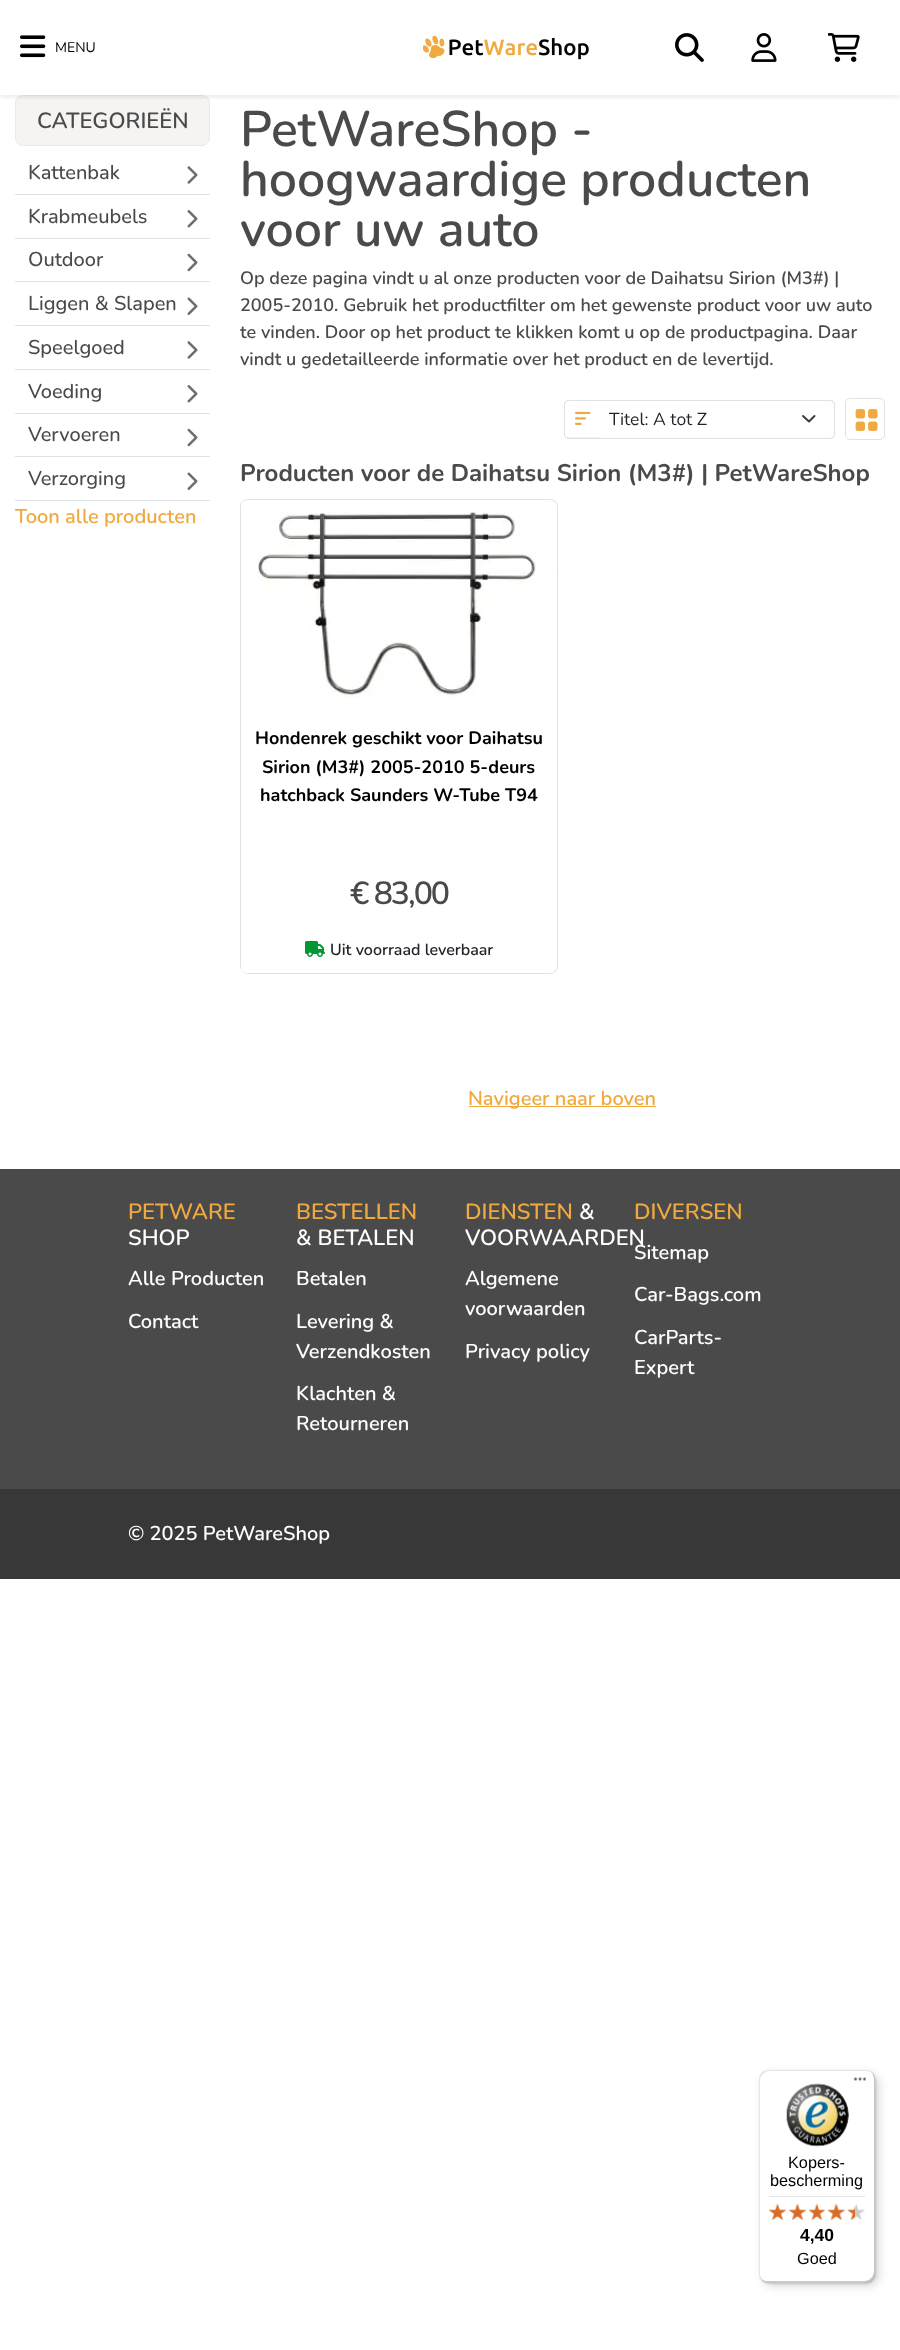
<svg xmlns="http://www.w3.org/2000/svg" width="900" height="2350">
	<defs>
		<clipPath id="clip1"><rect x="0" y="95" width="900" height="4" /></clipPath>
	</defs>
	<rect width="100%" height="100%" fill="#FFFFFF" />
	<rect x="15.5" y="95.5" width="194" height="50" rx="7.5" fill="#F6F4F2" stroke="#EDE8E4" />
	<g clip-path="url(#clip1)">
		<rect x="0" y="3" width="900" height="95" fill="#000000" fill-opacity="0.07" filter="blur(2.5px)" />
	</g>
	<image x="20" y="35" width="26" height="23" href="assets/img1.png" />
	<text x="55" y="52" font-family="Nunito" font-size="14" fill="#000000">MENU</text>
	<image x="423" y="35" width="166" height="25" href="assets/img2.png" />
	<image x="675" y="33" width="29" height="29" href="assets/img3.png" />
	<image x="751" y="33" width="26" height="29" href="assets/img4.png" />
	<image x="828" y="33" width="32" height="29" href="assets/img5.png" />
	<text x="37" y="128" font-family="Nunito" font-size="22" font-weight="600" fill="#4A4A4A">CATEGORIEËN</text>
	<rect x="15" y="194" width="195" height="1" fill="#DEE2E6" />
	<text x="28" y="179" font-family="Nunito" font-size="20" font-weight="500" fill="#4A4A4A">Kattenbak</text>
	<image x="187" y="166" width="11" height="18" href="assets/img6.png" />
	<rect x="15" y="238" width="195" height="1" fill="#DEE2E6" />
	<text x="28" y="223" font-family="Nunito" font-size="20" font-weight="500" fill="#4A4A4A">Krabmeubels</text>
	<image x="187" y="210" width="11" height="18" href="assets/img7.png" />
	<rect x="15" y="281" width="195" height="1" fill="#DEE2E6" />
	<text x="28" y="266" font-family="Nunito" font-size="20" font-weight="500" fill="#4A4A4A">Outdoor</text>
	<image x="187" y="253" width="11" height="19" href="assets/img8.png" />
	<rect x="15" y="325" width="195" height="1" fill="#DEE2E6" />
	<text x="28" y="310" font-family="Nunito" font-size="20" font-weight="500" fill="#4A4A4A">Liggen &amp; Slapen</text>
	<image x="187" y="297" width="11" height="18" href="assets/img9.png" />
	<rect x="15" y="369" width="195" height="1" fill="#DEE2E6" />
	<text x="28" y="354" font-family="Nunito" font-size="20" font-weight="500" fill="#4A4A4A">Speelgoed</text>
	<image x="187" y="341" width="11" height="18" href="assets/img6.png" />
	<rect x="15" y="413" width="195" height="1" fill="#DEE2E6" />
	<text x="28" y="398" font-family="Nunito" font-size="20" font-weight="500" fill="#4A4A4A">Voeding</text>
	<image x="187" y="385" width="11" height="18" href="assets/img7.png" />
	<rect x="15" y="456" width="195" height="1" fill="#DEE2E6" />
	<text x="28" y="441" font-family="Nunito" font-size="20" font-weight="500" fill="#4A4A4A">Vervoeren</text>
	<image x="187" y="428" width="11" height="19" href="assets/img8.png" />
	<rect x="15" y="500" width="195" height="1" fill="#DEE2E6" />
	<text x="28" y="485" font-family="Nunito" font-size="20" font-weight="500" fill="#4A4A4A">Verzorging</text>
	<image x="187" y="472" width="11" height="18" href="assets/img9.png" />
	<text x="15" y="523" font-family="Nunito" font-size="20" font-weight="600" fill="#F0A93E">Toon alle producten</text>
	<g font-family="Nunito" font-size="50" font-weight="600" fill="#4A4A4A">
		<text x="240" y="146">PetWareShop -</text>
		<text x="240" y="196">hoogwaardige producten</text>
		<text x="240" y="246">voor uw auto</text>
	</g>
	<g font-family="Nunito" font-size="18" font-weight="600" fill="#4A4A4A">
		<text x="240" y="284">Op deze pagina vindt u al onze producten voor de Daihatsu Sirion (M3#) |</text>
		<text x="240" y="311">2005-2010. Gebruik het productfilter om het gewenste product voor uw auto</text>
		<text x="240" y="338">te vinden. Door op het product te klikken komt u op de productpagina. Daar</text>
		<text x="240" y="365">vindt u gedetailleerde informatie over het product en de levertijd.</text>
	</g>
	<path d="M569 400H600V439H569C566 439 564 436.5 564 434V405C564 402 566 400 569 400ZM569 401H600V437.5H569C566.5 437.5 565 436 565 434V405C565 403 566.5 401 569 401Z" fill="#DEE2E6" fill-rule="evenodd" />
	<image x="575" y="411" width="16" height="14" href="assets/img10.png" />
	<path d="M599 400H830C833 400 835 402 835 405V434C835 437 833 439 830 439H599Z" fill="#FFFFFF" />
	<path d="M803 416L809 421.5L814.5 416" fill="none" stroke="#343A40" stroke-width="1.9" stroke-linecap="round" stroke-linejoin="round" />
	<path d="M599 400H830C833 400 835 402 835 405V434C835 437 833 439 830 439H599ZM599 401H830C832 401 834 403 834 405V434C834 436 832 438 830 438H599Z" fill="#DEE2E6" fill-rule="evenodd" />
	<text x="609" y="425" font-family="Nunito" font-size="17.5" fill="#212529">Titel: A tot Z</text>
	<rect x="845.5" y="398.5" width="39" height="41" rx="4.5" fill="none" stroke="#DEE2E6" />
	<image x="855" y="409" width="23" height="22" href="assets/img11.png" />
	<text x="240" y="481" font-family="Nunito" font-size="24" font-weight="700" fill="#4A4A4A">Producten voor de Daihatsu Sirion (M3#) | PetWareShop</text>
	<rect x="240.5" y="499.5" width="317" height="474" rx="7.5" fill="none" stroke="#DEE2E6" />
	<image x="241" y="500" width="314" height="198" href="assets/img12.png" />
	<g font-family="Nunito" font-size="18" font-weight="700" fill="#000000">
		<text x="255" y="744">Hondenrek geschikt voor Daihatsu</text>
		<text x="262" y="773">Sirion (M3#) 2005-2010 5-deurs</text>
		<text x="260" y="801">hatchback Saunders W-Tube T94</text>
	</g>
	<path d="M241 871H556V967C556 970.5 553.5 973 550 973H247C243.5 973 241 970.5 241 967Z" fill="#FFFFFF" />
	<text x="350" y="904" font-family="Nunito" font-size="32" font-weight="600" letter-spacing="-2" fill="#4A4A4A">€ 83,00</text>
	<image x="305" y="941" width="20" height="16" href="assets/img13.png" />
	<text x="330" y="955" font-family="Nunito" font-size="16" font-weight="600" fill="#212529">Uit voorraad leverbaar</text>
	<rect x="469" y="1106" width="187" height="1" fill="#F0A93E" />
	<text x="468" y="1105" font-family="Nunito" font-size="20" font-weight="600" fill="#F0A93E">Navigeer naar boven</text>
	<rect x="0" y="1169" width="900" height="320" fill="#4A4A4A" />
	<text x="128" y="1219" font-family="Nunito" font-size="22" font-weight="600" fill="#F0A93E">PETWARE</text>
	<text x="128" y="1245" font-family="Nunito" font-size="22" font-weight="600" fill="#FFFFFF">SHOP</text>
	<g font-family="Nunito" font-size="20" font-weight="600" fill="#FFFFFF">
		<text x="128" y="1285">Alle Producten</text>
		<text x="128" y="1328">Contact</text>
	</g>
	<text x="296" y="1219" font-family="Nunito" font-size="22" font-weight="600" fill="#F0A93E">BESTELLEN</text>
	<text x="296" y="1245" font-family="Nunito" font-size="22" font-weight="600" fill="#FFFFFF">&amp; BETALEN</text>
	<g font-family="Nunito" font-size="20" font-weight="600" fill="#FFFFFF">
		<text x="296" y="1285">Betalen</text>
		<text x="296" y="1328">Levering &amp;</text>
		<text x="296" y="1358">Verzendkosten</text>
		<text x="296" y="1400">Klachten &amp;</text>
		<text x="296" y="1430">Retourneren</text>
	</g>
	<text x="465" y="1219" font-family="Nunito" font-size="22" font-weight="600" fill="#F0A93E">DIENSTEN</text>
	<g font-family="Nunito" font-size="22" font-weight="600" fill="#FFFFFF">
		<text x="579" y="1219">&amp;</text>
		<text x="465" y="1245">VOORWAARDEN</text>
	</g>
	<g font-family="Nunito" font-size="20" font-weight="600" fill="#FFFFFF">
		<text x="465" y="1285">Algemene</text>
		<text x="465" y="1315">voorwaarden</text>
		<text x="465" y="1358">Privacy policy</text>
	</g>
	<text x="634" y="1219" font-family="Nunito" font-size="22" font-weight="600" fill="#F0A93E">DIVERSEN</text>
	<g font-family="Nunito" font-size="20" font-weight="600" fill="#FFFFFF">
		<text x="634" y="1259">Sitemap</text>
		<text x="634" y="1301">Car-Bags.com</text>
		<text x="634" y="1344">CarParts-</text>
		<text x="634" y="1374">Expert</text>
	</g>
	<rect x="0" y="1489" width="900" height="90" fill="#383838" />
	<text x="128" y="1540" font-family="Nunito" font-size="20" font-weight="600" fill="#FFFFFF">© 2025 PetWareShop</text>
	<rect x="763" y="2074" width="116" height="212" rx="10" fill="#000000" fill-opacity="0.15" filter="blur(5px)" />
	<rect x="760" y="2071" width="116" height="213" rx="10" fill="#000000" fill-opacity="0.15" filter="blur(1px)" />
	<rect x="759" y="2070" width="116" height="213" rx="10" fill="#FFFFFF" />
	<path d="M770 2071H866C869 2071 871 2072 873 2073C871 2071 868 2070 865 2070H769C763 2070 759 2074 759 2080V2273C759 2276 760 2279 763 2281C761 2279 760 2276 760 2274V2081C760 2076 764 2071 770 2071Z" fill="#000000" fill-opacity="0.1" />
	<path d="M760 2277C762 2281 765 2283 769 2283H865C871 2283 875 2279 875 2273V2080C875 2077 874 2074 872 2072C873 2074 874 2076 874 2079V2271C874 2277 869 2281 864 2281H768C765 2281 762 2280 760 2277Z" fill="#000000" fill-opacity="0.2" />
	<path d="M761 2280C763 2282 766 2283 769 2283H865C871 2283 875 2279 875 2273V2080C875 2077 874 2074 871 2072C873 2074 874 2077 874 2079V2272C874 2277 870 2282 864 2282H768C765 2282 763 2281 761 2280Z" fill="#323232" fill-opacity="0.2" />
	<path d="M760 2278C762 2281 765 2283 769 2283H865C871 2283 875 2279 875 2273V2080C875 2077 874 2074 871 2072C873 2074 874 2077 874 2079V2272C874 2277 870 2282 864 2282H768C765 2282 762 2280 760 2278Z" fill="#FFFFFF" fill-opacity="0.3" />
	<image x="853" y="2077" width="13" height="4" href="assets/img14.png" />
	<image x="786" y="2083" width="63" height="64" href="assets/img15.png" />
	<g font-family="Liberation Sans" font-size="16.25" fill="#000000">
		<text x="788" y="2168">Kopers-</text>
		<text x="770" y="2186">bescherming</text>
	</g>
	<rect x="769" y="2196" width="96" height="1" fill="#E5E5E5" />
	<image x="769" y="2204" width="17" height="16" href="assets/img21.png" />
	<image x="768" y="2203" width="18" height="17" href="assets/img16.png" />
	<image x="789" y="2204" width="17" height="16" href="assets/img22.png" />
	<image x="788" y="2203" width="19" height="17" href="assets/img17.png" />
	<image x="809" y="2204" width="16" height="16" href="assets/img23.png" />
	<image x="808" y="2203" width="17" height="17" href="assets/img18.png" />
	<image x="827" y="2204" width="18" height="16" href="assets/img24.png" />
	<image x="827" y="2203" width="18" height="17" href="assets/img19.png" />
	<image x="847" y="2204" width="18" height="16" href="assets/img25.png" />
	<image x="847" y="2205" width="8" height="15" href="assets/img20.png" />
	<text x="800" y="2241" font-family="Liberation Sans" font-size="17.5" font-weight="700" fill="#000000">4,40</text>
	<text x="797" y="2264" font-family="Liberation Sans" font-size="16.25" fill="#000000">Goed</text>
</svg>
